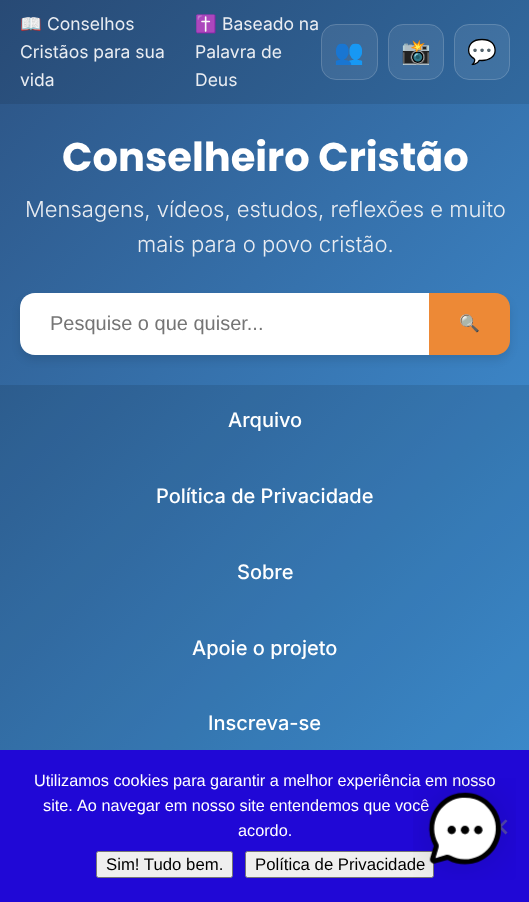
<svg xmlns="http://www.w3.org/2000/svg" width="529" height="902">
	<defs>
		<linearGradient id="g1" gradientUnits="userSpaceOnUse" x1="-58" y1="58" x2="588" y2="705"><stop offset="0" stop-color="#2C5282" /><stop offset="1" stop-color="#4299E1" /></linearGradient>
		<linearGradient id="g2" gradientUnits="userSpaceOnUse" x1="-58" y1="58" x2="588" y2="705"><stop offset="0" stop-color="#284A75" /><stop offset="1" stop-color="#3B8ACB" /></linearGradient>
	</defs>
	<rect width="100%" height="100%" fill="#FFFFFF" />
	<rect x="0" y="104" width="529" height="646" fill="url(#g1)" />
	<rect x="0" y="0" width="529" height="104" fill="url(#g2)" />
	<text x="20" y="30" font-family="Noto Color Emoji" font-size="17.5" fill="#EAEDF2">📖</text>
	<g font-family="Inter" font-size="17.5" fill="#EAEDF2">
		<text x="47" y="30">Conselhos</text>
		<text x="20" y="58">Cristãos para sua</text>
		<text x="20" y="86">vida</text>
	</g>
	<text x="195" y="30" font-family="Noto Color Emoji" font-size="17.5" fill="#EAEDF2">✝️</text>
	<g font-family="Inter" font-size="17.5" fill="#EAEDF2">
		<text x="222" y="30">Baseado na</text>
		<text x="195" y="58">Palavra de</text>
		<text x="195" y="86">Deus</text>
	</g>
	<rect x="321" y="24" width="57" height="56" rx="15" fill="#FFFFFF" fill-opacity="0.08" />
	<rect x="321.5" y="24.5" width="56" height="55" rx="14.5" fill="none" stroke="#FFFFFF" stroke-opacity="0.16" />
	<text x="334" y="60" font-family="Noto Color Emoji" font-size="24" fill="#D9E1EA">👥</text>
	<rect x="388" y="24" width="56" height="56" rx="15" fill="#FFFFFF" fill-opacity="0.08" />
	<rect x="388.5" y="24.5" width="55" height="55" rx="14.5" fill="none" stroke="#FFFFFF" stroke-opacity="0.16" />
	<text x="401" y="60" font-family="Noto Color Emoji" font-size="24" fill="#D9E1EA">📸</text>
	<rect x="454" y="24" width="56" height="56" rx="15" fill="#FFFFFF" fill-opacity="0.08" />
	<rect x="454.5" y="24.5" width="55" height="55" rx="14.5" fill="none" stroke="#FFFFFF" stroke-opacity="0.16" />
	<text x="467" y="60" font-family="Noto Color Emoji" font-size="24" fill="#D9E1EA">💬</text>
	<text x="62" y="171" font-family="Poppins" font-size="40" font-weight="700" fill="#FFFFFF">Conselheiro Cristão</text>
	<g font-family="Inter" font-size="22" font-weight="300" fill="#EAEDF2">
		<text x="25" y="217">Mensagens, vídeos, estudos, reflexões e muito</text>
		<text x="137" y="252">mais para o povo cristão.</text>
	</g>
	<rect x="20" y="298" width="490" height="62" rx="15" fill="#000000" fill-opacity="0.1" filter="blur(4px)" />
	<path d="M35 293H429V355H35C26.5 355 20 348.5 20 340V308C20 299.5 26.5 293 35 293Z" fill="#FFFFFF" />
	<text x="50" y="330" font-family="Liberation Sans" font-size="20" fill="#757575">Pesquise o que quiser...</text>
	<path d="M429 293H495C503.5 293 510 299.5 510 308V340C510 348.5 503.5 355 495 355H429Z" fill="#ED8936" />
	<text x="459" y="329" font-family="Noto Color Emoji" font-size="16.75" font-weight="700" fill="#FFFFFF">🔍</text>
	<rect x="0" y="385" width="529" height="365" fill="#000000" fill-opacity="0.1" />
	<g font-family="Inter" font-size="20" font-weight="500" fill="#FFFFFF">
		<text x="228" y="427">Arquivo</text>
		<text x="156" y="503">Política de Privacidade</text>
		<text x="237" y="579">Sobre</text>
		<text x="192" y="655">Apoie o projeto</text>
		<text x="208" y="730">Inscreva-se</text>
	</g>
	<rect x="0" y="750" width="529" height="152" fill="#2008D6" />
	<g font-family="Liberation Sans" font-size="16.25" fill="#FFFFFF">
		<text x="34" y="786">Utilizamos cookies para garantir a melhor experiência em nosso</text>
		<text x="43" y="811">site.</text>
		<text x="77" y="811">Ao navegar em nosso site entendemos que você</text>
		<text x="238" y="836">acordo.</text>
	</g>
	<path d="M505.5 819.5L507.5 821L494.5 834.5L492.5 832.5Z" fill="#5044AB" />
	<path d="M492.5 821L494.5 819.5L507.5 832.5L505.5 834.5Z" fill="#5044AB" />
	<rect x="96.5" y="851.5" width="136" height="26" rx="2" fill="#EFEFEF" stroke="#767676" />
	<text x="106" y="870" font-family="Liberation Sans" font-size="16.75" fill="#000000">Sim! Tudo bem.</text>
	<rect x="245.5" y="851.5" width="188" height="26" rx="2" fill="#EFEFEF" stroke="#767676" />
	<text x="255" y="870" font-family="Liberation Sans" font-size="16.75" fill="#000000">Política de Privacidade</text>
	<image x="413" y="778" width="103" height="102" href="assets/img1.png" />
</svg>
